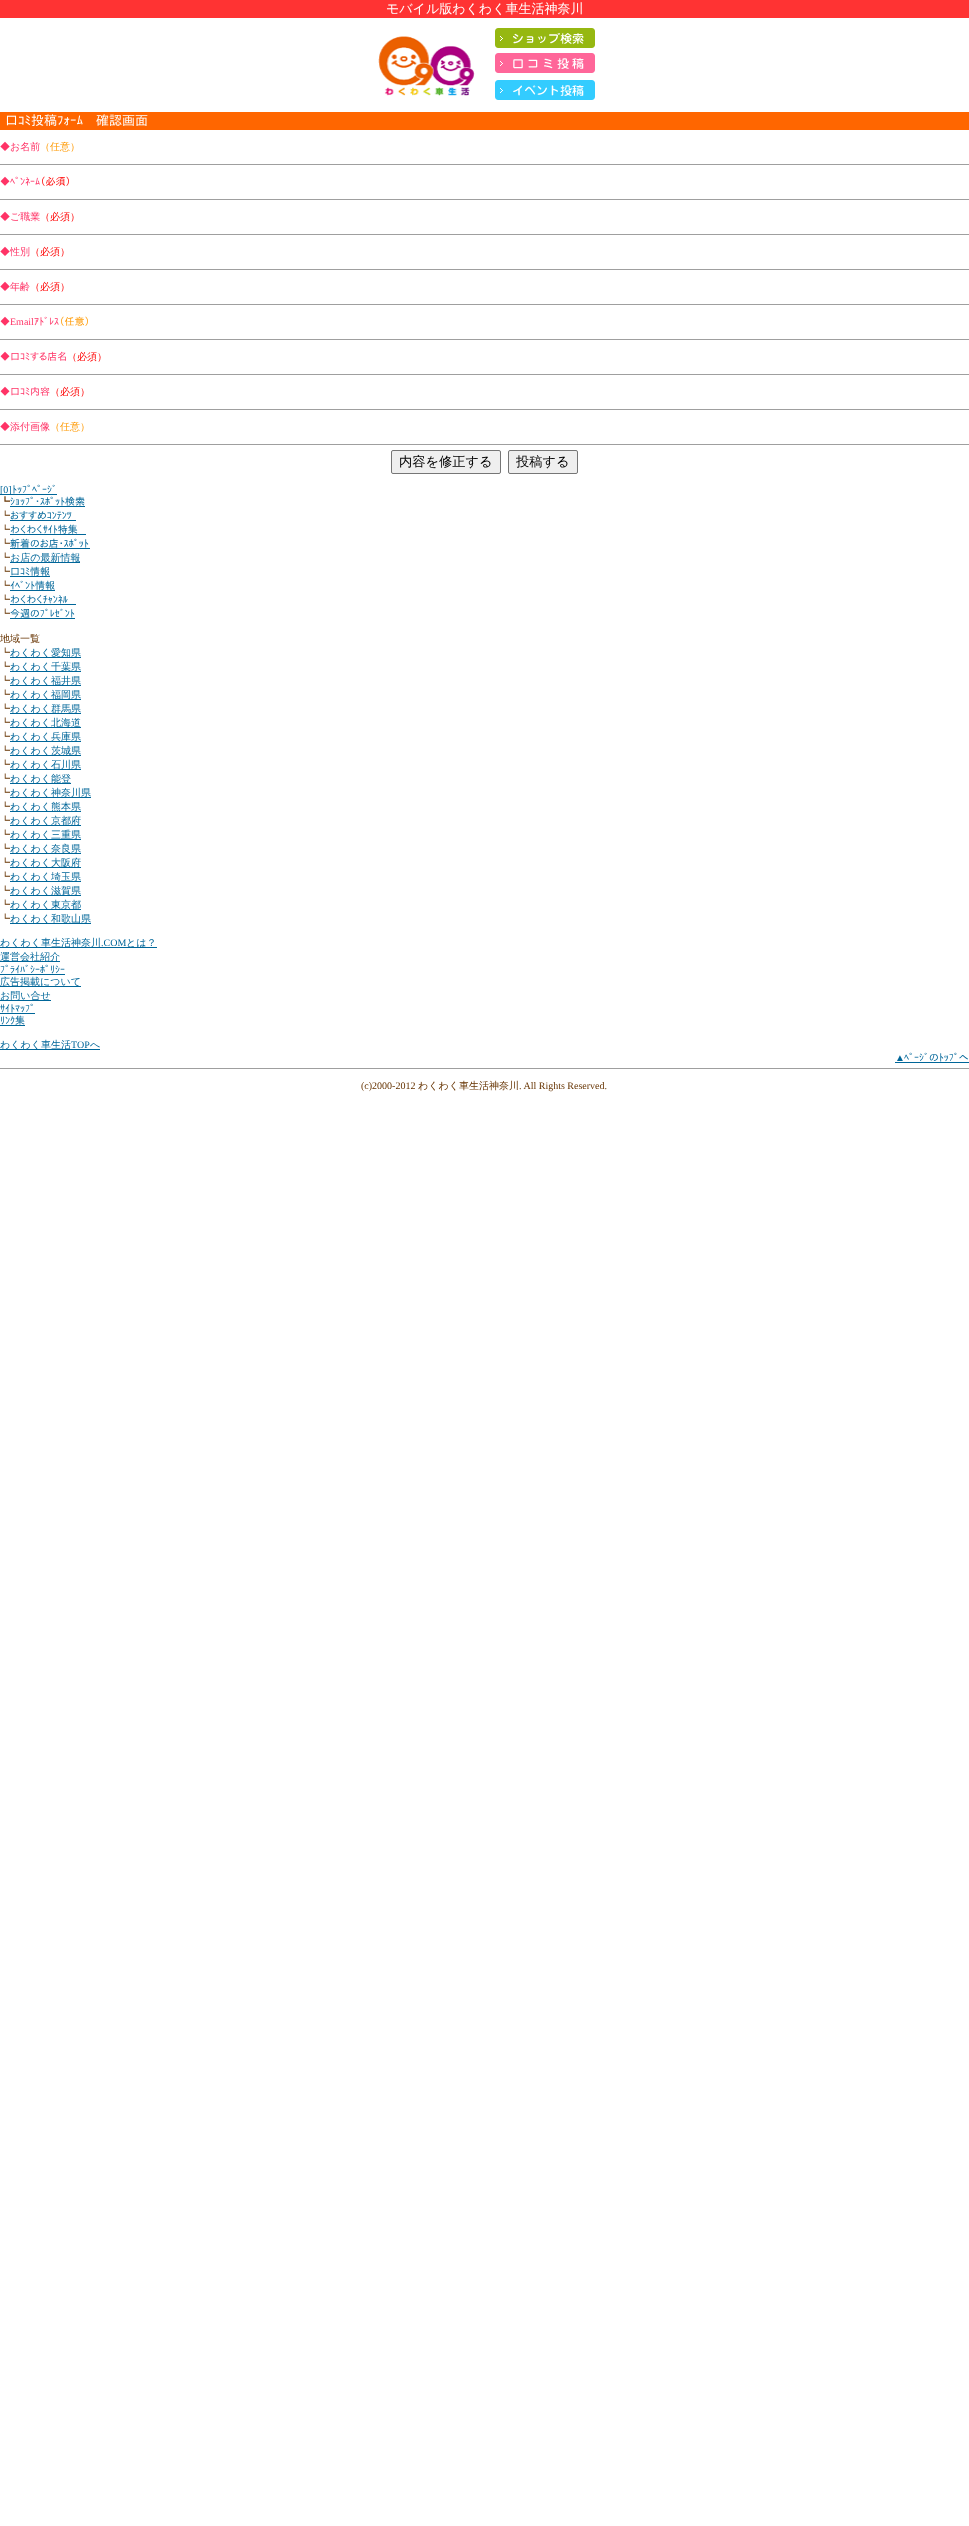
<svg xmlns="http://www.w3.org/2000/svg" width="969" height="2526">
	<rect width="100%" height="100%" fill="#FFFFFF" />
	<rect x="0" y="0" width="969" height="18" fill="#FF3333" />
	<text x="386" y="13" font-family="WenQuanYi Zen Hei" font-size="13" font-weight="500" fill="#FFFFFF">モバイル版わくわく車生活神奈川</text>
	<image x="378" y="36" width="97" height="60" href="assets/img1.png" />
	<image x="495" y="28" width="100" height="20" href="assets/img2.png" />
	<image x="495" y="53" width="100" height="20" href="assets/img3.png" />
	<image x="495" y="80" width="100" height="20" href="assets/img4.png" />
	<rect x="0" y="112" width="969" height="18" fill="#FF6600" />
	<text x="5" y="125" font-family="IPAPGothic" font-size="13" fill="#FFFFFF">口ｺﾐ投稿ﾌｫｰﾑ　確認画面</text>
	<text x="0" y="150" font-family="WenQuanYi Zen Hei" font-size="10" font-weight="500" fill="#FF3366">◆お名前</text>
	<text x="40" y="150" font-family="WenQuanYi Zen Hei" font-size="10" font-weight="500" fill="#FF9900">（任意）</text>
	<rect x="0" y="164" width="969" height="1" fill="#9F9F9F" />
	<text x="0" y="185" font-family="IPAPGothic" font-size="10" fill="#FF3366">◆ﾍﾟﾝﾈｰﾑ</text>
	<text x="40" y="185" font-family="IPAPGothic" font-size="10" fill="#FF0000">（必須）</text>
	<rect x="0" y="199" width="969" height="1" fill="#9F9F9F" />
	<text x="0" y="220" font-family="WenQuanYi Zen Hei" font-size="10" font-weight="500" fill="#FF3366">◆ご職業</text>
	<text x="40" y="220" font-family="WenQuanYi Zen Hei" font-size="10" font-weight="500" fill="#FF0000">（必須）</text>
	<rect x="0" y="234" width="969" height="1" fill="#9F9F9F" />
	<text x="0" y="255" font-family="WenQuanYi Zen Hei" font-size="10" font-weight="500" fill="#FF3366">◆性別</text>
	<text x="30" y="255" font-family="WenQuanYi Zen Hei" font-size="10" font-weight="500" fill="#FF0000">（必須）</text>
	<rect x="0" y="269" width="969" height="1" fill="#9F9F9F" />
	<text x="0" y="290" font-family="WenQuanYi Zen Hei" font-size="10" font-weight="500" fill="#FF3366">◆年齢</text>
	<text x="30" y="290" font-family="WenQuanYi Zen Hei" font-size="10" font-weight="500" fill="#FF0000">（必須）</text>
	<rect x="0" y="304" width="969" height="1" fill="#9F9F9F" />
	<text x="0" y="325" font-family="IPAPGothic" font-size="10" fill="#FF3366">◆</text>
	<text x="10" y="325" font-family="Liberation Serif" font-size="10" fill="#FF3366">Email</text>
	<text x="34" y="325" font-family="IPAPGothic" font-size="10" fill="#FF3366">ｱﾄﾞﾚｽ</text>
	<text x="59" y="325" font-family="IPAPGothic" font-size="10" fill="#FF9900">（任意）</text>
	<rect x="0" y="339" width="969" height="1" fill="#9F9F9F" />
	<text x="0" y="360" font-family="IPAPGothic" font-size="10" fill="#FF3366">◆口ｺﾐする店名</text>
	<text x="67" y="360" font-family="WenQuanYi Zen Hei" font-size="10" font-weight="500" fill="#FF0000">（必須）</text>
	<rect x="0" y="374" width="969" height="1" fill="#9F9F9F" />
	<text x="0" y="395" font-family="IPAPGothic" font-size="10" fill="#FF3366">◆口ｺﾐ内容</text>
	<text x="50" y="395" font-family="WenQuanYi Zen Hei" font-size="10" font-weight="500" fill="#FF0000">（必須）</text>
	<rect x="0" y="409" width="969" height="1" fill="#9F9F9F" />
	<text x="0" y="430" font-family="WenQuanYi Zen Hei" font-size="10" font-weight="500" fill="#FF3366">◆添付画像</text>
	<text x="50" y="430" font-family="WenQuanYi Zen Hei" font-size="10" font-weight="500" fill="#FF9900">（任意）</text>
	<rect x="0" y="444" width="969" height="1" fill="#9F9F9F" />
	<rect x="391.5" y="450.5" width="109" height="23" rx="1.5" fill="#EFEFEF" stroke="#767676" />
	<text x="399" y="466" font-family="WenQuanYi Zen Hei" font-size="13.25" font-weight="500" fill="#000000">内容を修正する</text>
	<rect x="508.5" y="450.5" width="69" height="23" rx="1.5" fill="#EFEFEF" stroke="#767676" />
	<text x="516" y="466" font-family="WenQuanYi Zen Hei" font-size="13.25" font-weight="500" fill="#000000">投稿する</text>
	<rect x="0" y="494" width="57" height="1" fill="#006699" />
	<text x="0" y="493" font-family="Liberation Serif" font-size="10" fill="#006699">[0]</text>
	<text x="12" y="493" font-family="IPAPGothic" font-size="10" fill="#006699">ﾄｯﾌﾟﾍﾟｰｼﾞ</text>
	<text x="0" y="505" font-family="IPAPGothic" font-size="10" fill="#663300">┗</text>
	<text x="10" y="505" font-family="IPAPGothic" font-size="10" fill="#006699">ｼｮｯﾌﾟ･ｽﾎﾟｯﾄ検索</text>
	<rect x="10" y="506" width="75" height="1" fill="#006699" />
	<text x="0" y="519" font-family="WenQuanYi Zen Hei" font-size="10" font-weight="500" fill="#663300">┗</text>
	<text x="10" y="519" font-family="IPAPGothic" font-size="10" fill="#006699">おすすめｺﾝﾃﾝﾂ</text>
	<rect x="10" y="520" width="66" height="1" fill="#006699" />
	<text x="0" y="533" font-family="WenQuanYi Zen Hei" font-size="10" font-weight="500" fill="#663300">┗</text>
	<text x="10" y="533" font-family="IPAPGothic" font-size="10" fill="#006699">わくわくｻｲﾄ特集</text>
	<rect x="10" y="534" width="76" height="1" fill="#006699" />
	<text x="0" y="547" font-family="WenQuanYi Zen Hei" font-size="10" font-weight="500" fill="#663300">┗</text>
	<text x="10" y="547" font-family="IPAPGothic" font-size="10" fill="#006699">新着のお店･ｽﾎﾟｯﾄ</text>
	<rect x="10" y="548" width="80" height="1" fill="#006699" />
	<text x="0" y="561" font-family="WenQuanYi Zen Hei" font-size="10" font-weight="500" fill="#663300">┗</text>
	<rect x="10" y="562" width="70" height="1" fill="#006699" />
	<text x="10" y="561" font-family="WenQuanYi Zen Hei" font-size="10" font-weight="500" fill="#006699">お店の最新情報</text>
	<text x="0" y="575" font-family="WenQuanYi Zen Hei" font-size="10" font-weight="500" fill="#663300">┗</text>
	<text x="10" y="575" font-family="IPAPGothic" font-size="10" fill="#006699">口ｺﾐ情報</text>
	<rect x="10" y="576" width="40" height="1" fill="#006699" />
	<text x="0" y="589" font-family="WenQuanYi Zen Hei" font-size="10" font-weight="500" fill="#663300">┗</text>
	<text x="10" y="589" font-family="IPAPGothic" font-size="10" fill="#006699">ｲﾍﾞﾝﾄ情報</text>
	<rect x="10" y="590" width="45" height="1" fill="#006699" />
	<text x="0" y="603" font-family="WenQuanYi Zen Hei" font-size="10" font-weight="500" fill="#663300">┗</text>
	<text x="10" y="603" font-family="IPAPGothic" font-size="10" fill="#006699">わくわくﾁｬﾝﾈﾙ</text>
	<rect x="10" y="604" width="66" height="1" fill="#006699" />
	<text x="0" y="617" font-family="WenQuanYi Zen Hei" font-size="10" font-weight="500" fill="#663300">┗</text>
	<text x="10" y="617" font-family="IPAPGothic" font-size="10" fill="#006699">今週のﾌﾟﾚｾﾞﾝﾄ</text>
	<rect x="10" y="618" width="65" height="1" fill="#006699" />
	<g font-family="WenQuanYi Zen Hei" font-size="10" font-weight="500" fill="#663300">
		<text x="0" y="642">地域一覧</text>
		<text x="0" y="656">┗</text>
	</g>
	<rect x="10" y="657" width="71" height="1" fill="#006699" />
	<text x="10" y="656" font-family="WenQuanYi Zen Hei" font-size="10" font-weight="500" fill="#006699">わくわく愛知県</text>
	<text x="0" y="670" font-family="WenQuanYi Zen Hei" font-size="10" font-weight="500" fill="#663300">┗</text>
	<rect x="10" y="671" width="71" height="1" fill="#006699" />
	<text x="10" y="670" font-family="WenQuanYi Zen Hei" font-size="10" font-weight="500" fill="#006699">わくわく千葉県</text>
	<text x="0" y="684" font-family="WenQuanYi Zen Hei" font-size="10" font-weight="500" fill="#663300">┗</text>
	<rect x="10" y="685" width="71" height="1" fill="#006699" />
	<text x="10" y="684" font-family="WenQuanYi Zen Hei" font-size="10" font-weight="500" fill="#006699">わくわく福井県</text>
	<text x="0" y="698" font-family="WenQuanYi Zen Hei" font-size="10" font-weight="500" fill="#663300">┗</text>
	<rect x="10" y="699" width="71" height="1" fill="#006699" />
	<text x="10" y="698" font-family="WenQuanYi Zen Hei" font-size="10" font-weight="500" fill="#006699">わくわく福岡県</text>
	<text x="0" y="712" font-family="WenQuanYi Zen Hei" font-size="10" font-weight="500" fill="#663300">┗</text>
	<rect x="10" y="713" width="71" height="1" fill="#006699" />
	<text x="10" y="712" font-family="WenQuanYi Zen Hei" font-size="10" font-weight="500" fill="#006699">わくわく群馬県</text>
	<text x="0" y="726" font-family="WenQuanYi Zen Hei" font-size="10" font-weight="500" fill="#663300">┗</text>
	<rect x="10" y="727" width="71" height="1" fill="#006699" />
	<text x="10" y="726" font-family="WenQuanYi Zen Hei" font-size="10" font-weight="500" fill="#006699">わくわく北海道</text>
	<text x="0" y="740" font-family="WenQuanYi Zen Hei" font-size="10" font-weight="500" fill="#663300">┗</text>
	<rect x="10" y="741" width="71" height="1" fill="#006699" />
	<text x="10" y="740" font-family="WenQuanYi Zen Hei" font-size="10" font-weight="500" fill="#006699">わくわく兵庫県</text>
	<text x="0" y="754" font-family="WenQuanYi Zen Hei" font-size="10" font-weight="500" fill="#663300">┗</text>
	<rect x="10" y="755" width="71" height="1" fill="#006699" />
	<text x="10" y="754" font-family="WenQuanYi Zen Hei" font-size="10" font-weight="500" fill="#006699">わくわく茨城県</text>
	<text x="0" y="768" font-family="WenQuanYi Zen Hei" font-size="10" font-weight="500" fill="#663300">┗</text>
	<rect x="10" y="769" width="71" height="1" fill="#006699" />
	<text x="10" y="768" font-family="WenQuanYi Zen Hei" font-size="10" font-weight="500" fill="#006699">わくわく石川県</text>
	<text x="0" y="782" font-family="WenQuanYi Zen Hei" font-size="10" font-weight="500" fill="#663300">┗</text>
	<rect x="10" y="783" width="61" height="1" fill="#006699" />
	<text x="10" y="782" font-family="WenQuanYi Zen Hei" font-size="10" font-weight="500" fill="#006699">わくわく能登</text>
	<text x="0" y="796" font-family="WenQuanYi Zen Hei" font-size="10" font-weight="500" fill="#663300">┗</text>
	<rect x="10" y="797" width="81" height="1" fill="#006699" />
	<text x="10" y="796" font-family="WenQuanYi Zen Hei" font-size="10" font-weight="500" fill="#006699">わくわく神奈川県</text>
	<text x="0" y="810" font-family="WenQuanYi Zen Hei" font-size="10" font-weight="500" fill="#663300">┗</text>
	<rect x="10" y="811" width="71" height="1" fill="#006699" />
	<text x="10" y="810" font-family="WenQuanYi Zen Hei" font-size="10" font-weight="500" fill="#006699">わくわく熊本県</text>
	<text x="0" y="824" font-family="WenQuanYi Zen Hei" font-size="10" font-weight="500" fill="#663300">┗</text>
	<rect x="10" y="825" width="71" height="1" fill="#006699" />
	<text x="10" y="824" font-family="WenQuanYi Zen Hei" font-size="10" font-weight="500" fill="#006699">わくわく京都府</text>
	<text x="0" y="838" font-family="WenQuanYi Zen Hei" font-size="10" font-weight="500" fill="#663300">┗</text>
	<rect x="10" y="839" width="71" height="1" fill="#006699" />
	<text x="10" y="838" font-family="WenQuanYi Zen Hei" font-size="10" font-weight="500" fill="#006699">わくわく三重県</text>
	<text x="0" y="852" font-family="WenQuanYi Zen Hei" font-size="10" font-weight="500" fill="#663300">┗</text>
	<rect x="10" y="853" width="71" height="1" fill="#006699" />
	<text x="10" y="852" font-family="WenQuanYi Zen Hei" font-size="10" font-weight="500" fill="#006699">わくわく奈良県</text>
	<text x="0" y="866" font-family="WenQuanYi Zen Hei" font-size="10" font-weight="500" fill="#663300">┗</text>
	<rect x="10" y="867" width="71" height="1" fill="#006699" />
	<text x="10" y="866" font-family="WenQuanYi Zen Hei" font-size="10" font-weight="500" fill="#006699">わくわく大阪府</text>
	<text x="0" y="880" font-family="WenQuanYi Zen Hei" font-size="10" font-weight="500" fill="#663300">┗</text>
	<rect x="10" y="881" width="71" height="1" fill="#006699" />
	<text x="10" y="880" font-family="WenQuanYi Zen Hei" font-size="10" font-weight="500" fill="#006699">わくわく埼玉県</text>
	<text x="0" y="894" font-family="WenQuanYi Zen Hei" font-size="10" font-weight="500" fill="#663300">┗</text>
	<rect x="10" y="895" width="71" height="1" fill="#006699" />
	<text x="10" y="894" font-family="WenQuanYi Zen Hei" font-size="10" font-weight="500" fill="#006699">わくわく滋賀県</text>
	<text x="0" y="908" font-family="WenQuanYi Zen Hei" font-size="10" font-weight="500" fill="#663300">┗</text>
	<rect x="10" y="909" width="71" height="1" fill="#006699" />
	<text x="10" y="908" font-family="WenQuanYi Zen Hei" font-size="10" font-weight="500" fill="#006699">わくわく東京都</text>
	<text x="0" y="922" font-family="WenQuanYi Zen Hei" font-size="10" font-weight="500" fill="#663300">┗</text>
	<rect x="10" y="923" width="81" height="1" fill="#006699" />
	<text x="10" y="922" font-family="WenQuanYi Zen Hei" font-size="10" font-weight="500" fill="#006699">わくわく和歌山県</text>
	<rect x="0" y="947" width="157" height="1" fill="#006699" />
	<text x="0" y="946" font-family="WenQuanYi Zen Hei" font-size="10" font-weight="500" fill="#006699">わくわく車生活神奈川</text>
	<text x="101" y="946" font-family="Liberation Serif" font-size="10" fill="#006699">.COM</text>
	<text x="126" y="946" font-family="WenQuanYi Zen Hei" font-size="10" font-weight="500" fill="#006699">とは？</text>
	<rect x="0" y="961" width="60" height="1" fill="#006699" />
	<text x="0" y="960" font-family="WenQuanYi Zen Hei" font-size="10" font-weight="500" fill="#006699">運営会社紹介</text>
	<text x="0" y="973" font-family="IPAPGothic" font-size="10" fill="#006699">ﾌﾟﾗｲﾊﾞｼｰﾎﾟﾘｼｰ</text>
	<rect x="0" y="974" width="65" height="1" fill="#006699" />
	<rect x="0" y="986" width="81" height="1" fill="#006699" />
	<text x="0" y="985" font-family="WenQuanYi Zen Hei" font-size="10" font-weight="500" fill="#006699">広告掲載について</text>
	<rect x="0" y="1000" width="51" height="1" fill="#006699" />
	<text x="0" y="999" font-family="WenQuanYi Zen Hei" font-size="10" font-weight="500" fill="#006699">お問い合せ</text>
	<text x="0" y="1012" font-family="IPAPGothic" font-size="10" fill="#006699">ｻｲﾄﾏｯﾌﾟ</text>
	<rect x="0" y="1013" width="35" height="1" fill="#006699" />
	<text x="0" y="1024" font-family="IPAPGothic" font-size="10" fill="#006699">ﾘﾝｸ集</text>
	<rect x="0" y="1025" width="25" height="1" fill="#006699" />
	<rect x="0" y="1049" width="100" height="1" fill="#006699" />
	<text x="0" y="1048" font-family="WenQuanYi Zen Hei" font-size="10" font-weight="500" fill="#006699">わくわく車生活</text>
	<text x="71" y="1048" font-family="Liberation Serif" font-size="10" fill="#006699">TOP</text>
	<text x="90" y="1048" font-family="WenQuanYi Zen Hei" font-size="10" font-weight="500" fill="#006699">へ</text>
	<text x="895" y="1061" font-family="Liberation Serif" font-size="10" fill="#006699">▲</text>
	<rect x="895" y="1062" width="74" height="1" fill="#006699" />
	<text x="904" y="1061" font-family="IPAPGothic" font-size="10" fill="#006699">ﾍﾟｰｼﾞのﾄｯﾌﾟへ</text>
	<rect x="0" y="1068" width="969" height="1" fill="#9F9F9F" />
	<text x="361" y="1089" font-family="Liberation Serif" font-size="10" fill="#663300">(c)2000-2012</text>
	<text x="418" y="1089" font-family="WenQuanYi Zen Hei" font-size="10" font-weight="500" fill="#663300">わくわく車生活神奈川</text>
	<text x="519" y="1089" font-family="Liberation Serif" font-size="10" fill="#663300">. All Rights Reserved.</text>
</svg>
